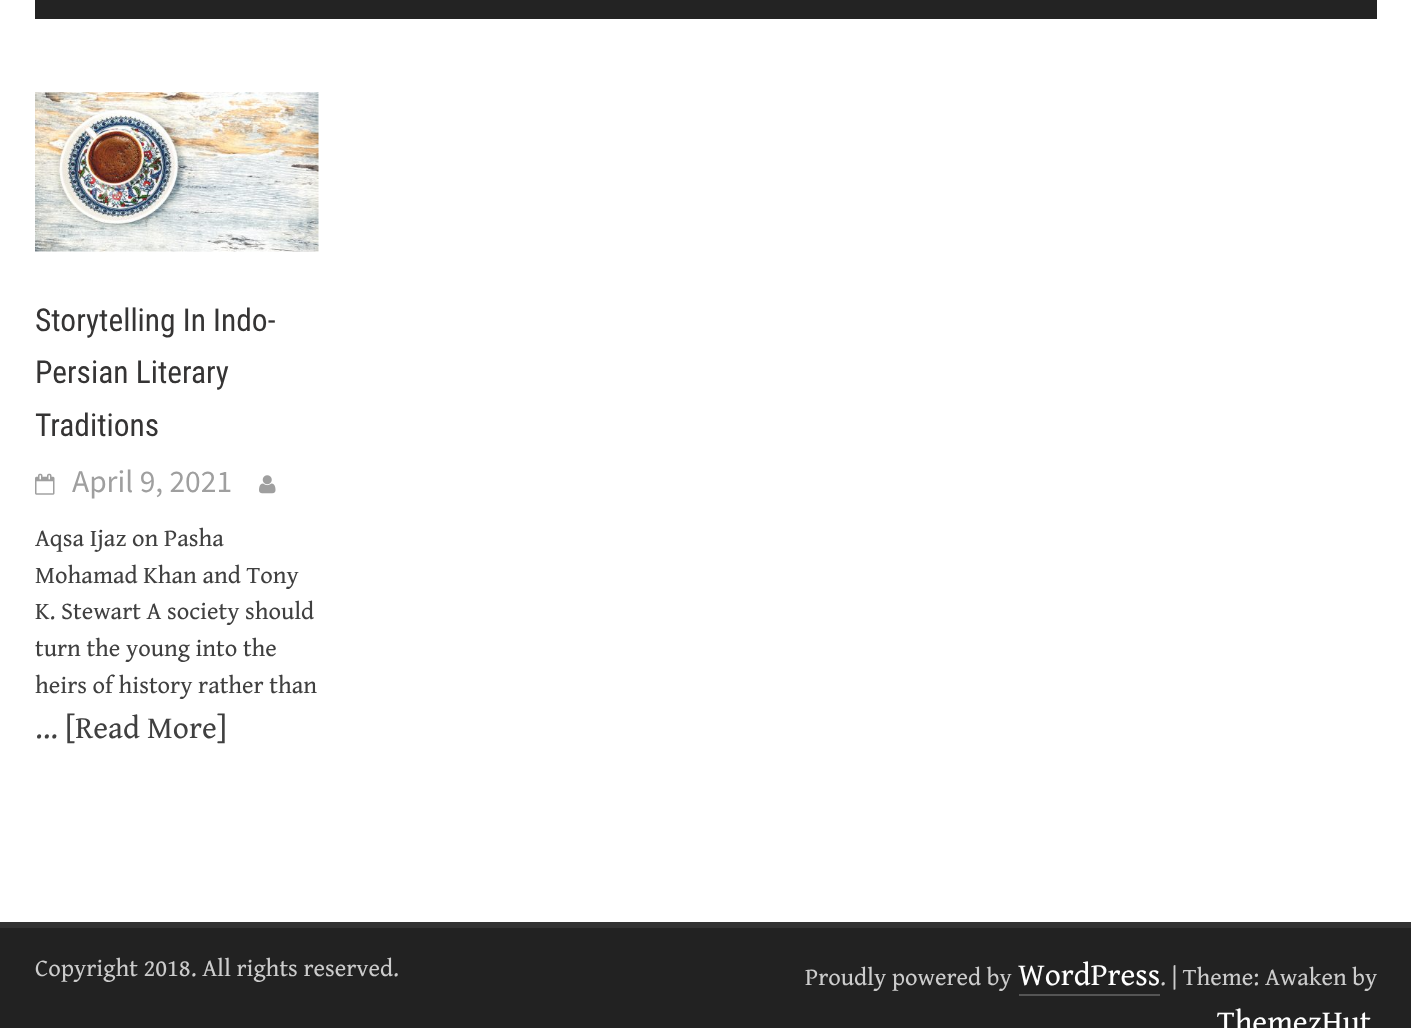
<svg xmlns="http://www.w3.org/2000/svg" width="1411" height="1028">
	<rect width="100%" height="100%" fill="#FFFFFF" />
	<rect x="35" y="0" width="1342" height="19" fill="#232323" />
	<image x="35" y="92" width="284" height="160" href="assets/img1.png" />
	<g font-family="Roboto Condensed" font-size="31.5" fill="#353434">
		<text x="35" y="331">Storytelling In Indo-</text>
		<text x="35" y="383">Persian Literary</text>
		<text x="35" y="436">Traditions</text>
	</g>
	<image x="35" y="473" width="20" height="22" href="assets/img2.png" />
	<text x="72" y="492" font-family="Source Sans Pro" font-size="31.5" fill="#9F9F9F">April 9, 2021</text>
	<image x="259" y="475" width="17" height="19" href="assets/img3.png" />
	<g font-family="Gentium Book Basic" font-size="24.5" fill="#404040">
		<text x="35" y="546">Aqsa Ijaz on Pasha</text>
		<text x="35" y="583">Mohamad Khan and Tony</text>
		<text x="35" y="619">K. Stewart A society should</text>
		<text x="35" y="656">turn the young into the</text>
		<text x="35" y="693">heirs of history rather than</text>
	</g>
	<text x="35" y="738" font-family="Gentium Book Basic" font-size="31.5" fill="#404040">... [Read More]</text>
	<rect x="0" y="922" width="1411" height="6" fill="#323232" />
	<rect x="0" y="928" width="1411" height="100" fill="#222222" />
	<g font-family="Gentium Book Basic" font-size="24.5" fill="#CCCCCC">
		<text x="35" y="976">Copyright 2018. All rights reserved.</text>
		<text x="805" y="985">Proudly powered by</text>
	</g>
	<text x="1018" y="985" font-family="Gentium Book Basic" font-size="31.5" fill="#FFFFFF">WordPress</text>
	<rect x="1019" y="994" width="141" height="2" fill="#555555" />
	<text x="1160" y="985" font-family="Gentium Book Basic" font-size="24.5" fill="#CCCCCC">. | Theme: Awaken by</text>
	<text x="1217" y="1032" font-family="Gentium Book Basic" font-size="31.5" fill="#FFFFFF">ThemezHut</text>
</svg>
